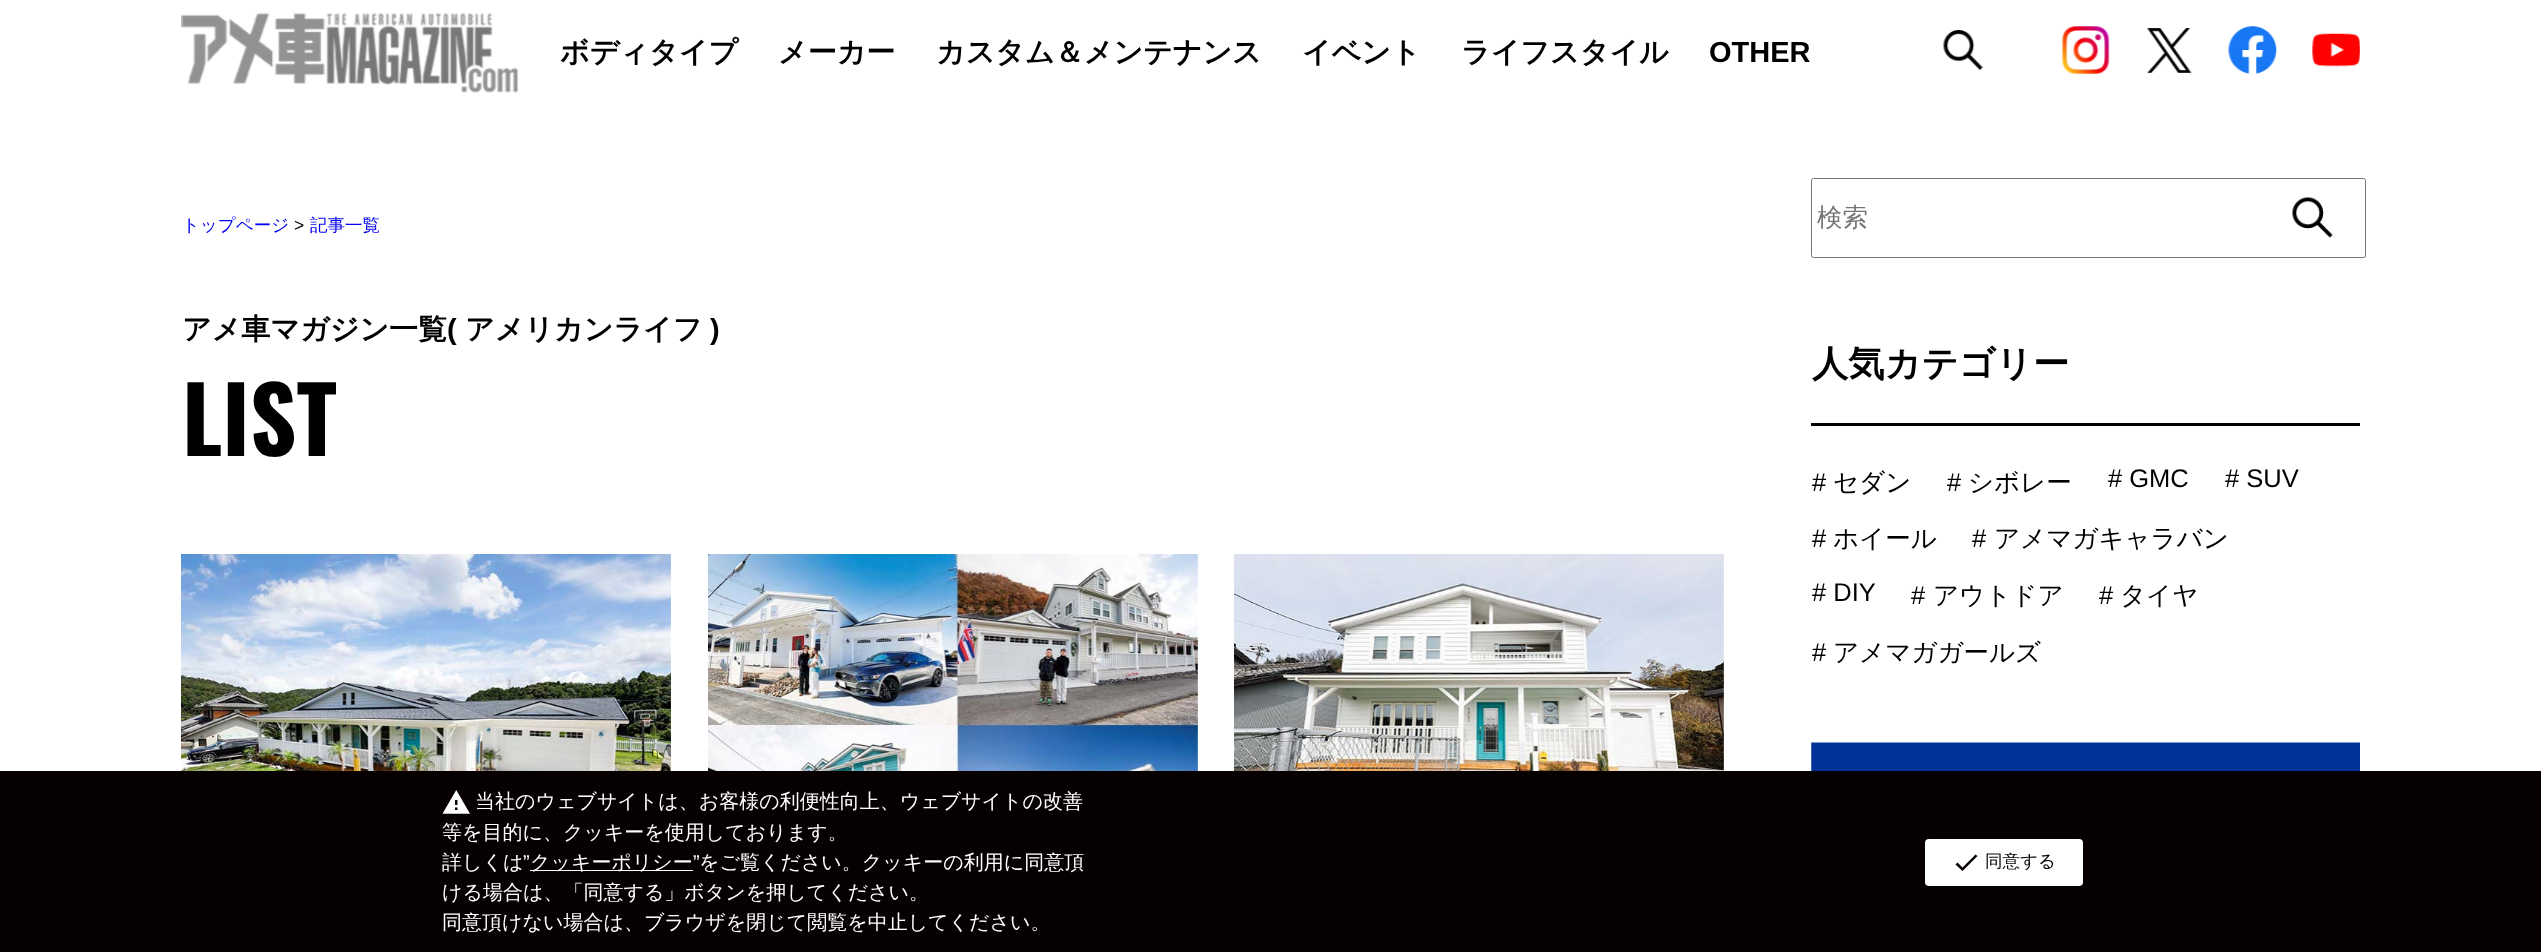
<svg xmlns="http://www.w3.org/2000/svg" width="2541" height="952">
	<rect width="100%" height="100%" fill="#FFFFFF" />
	<image x="181" y="12" width="338" height="81" href="assets/img1.png" />
	<g font-family="WenQuanYi Zen Hei" font-size="29" font-weight="700" fill="#000000">
		<text x="560" y="62">ボディタイプ</text>
		<text x="778" y="62">メーカー</text>
		<text x="936" y="62">カスタム＆メンテナンス</text>
		<text x="1302" y="62">イベント</text>
		<text x="1461" y="62">ライフスタイル</text>
	</g>
	<text x="1709" y="62" font-family="Liberation Sans" font-size="29" font-weight="700" fill="#000000">OTHER</text>
	<image x="1943" y="30" width="41" height="40" href="assets/img2.png" />
	<image x="2062" y="26" width="48" height="48" href="assets/img3.png" />
	<image x="2147" y="28" width="45" height="45" href="assets/img4.png" />
	<image x="2228" y="26" width="49" height="48" href="assets/img5.png" />
	<image x="2312" y="33" width="48" height="34" href="assets/img6.png" />
	<text x="182" y="231" font-family="WenQuanYi Zen Hei" font-size="17.5" font-weight="500" fill="#0000EE">トップページ</text>
	<text x="294" y="231" font-family="Liberation Sans" font-size="17.5" fill="#000000">&gt;</text>
	<text x="310" y="231" font-family="WenQuanYi Zen Hei" font-size="17.5" font-weight="500" fill="#0000EE">記事一覧</text>
	<text x="182" y="339" font-family="WenQuanYi Zen Hei" font-size="29" font-weight="700" fill="#000000">アメ車マガジン一覧</text>
	<text x="447" y="339" font-family="Liberation Sans" font-size="29" font-weight="700" fill="#000000">(</text>
	<text x="465" y="339" font-family="WenQuanYi Zen Hei" font-size="29" font-weight="700" fill="#000000">アメリカンライフ</text>
	<text x="710" y="339" font-family="Liberation Sans" font-size="29" font-weight="700" fill="#000000">)</text>
	<text x="182" y="456" font-family="Oswald" font-size="91" font-weight="700" fill="#000000">LIST</text>
	<image x="181" y="554" width="490" height="217" href="assets/img7.png" />
	<image x="708" y="554" width="490" height="217" href="assets/img8.png" />
	<image x="1234" y="554" width="490" height="217" href="assets/img9.png" />
	<rect x="1811.5" y="178.5" width="554" height="79" rx="2" fill="none" stroke="#767676" />
	<text x="1817" y="226" font-family="WenQuanYi Zen Hei" font-size="25.5" font-weight="500" fill="#757575">検索</text>
	<image x="2292" y="197" width="41" height="41" href="assets/img10.png" />
	<text x="1812" y="376" font-family="WenQuanYi Zen Hei" font-size="36.25" font-weight="700" fill="#000000">人気カテゴリー</text>
	<rect x="1811" y="423" width="549" height="3" fill="#000000" />
	<text x="1812" y="491" font-family="Liberation Sans" font-size="25.5" fill="#000000">#</text>
	<text x="1833" y="491" font-family="WenQuanYi Zen Hei" font-size="25.5" font-weight="500" fill="#000000">セダン</text>
	<text x="1947" y="491" font-family="Liberation Sans" font-size="25.5" fill="#000000">#</text>
	<text x="1968" y="491" font-family="WenQuanYi Zen Hei" font-size="25.5" font-weight="500" fill="#000000">シボレー</text>
	<g font-family="Liberation Sans" font-size="25.5" fill="#000000">
		<text x="2108" y="487"># GMC</text>
		<text x="2225" y="487"># SUV</text>
		<text x="1812" y="547">#</text>
	</g>
	<text x="1833" y="547" font-family="WenQuanYi Zen Hei" font-size="25.5" font-weight="500" fill="#000000">ホイール</text>
	<text x="1972" y="547" font-family="Liberation Sans" font-size="25.5" fill="#000000">#</text>
	<text x="1994" y="547" font-family="WenQuanYi Zen Hei" font-size="25.5" font-weight="500" fill="#000000">アメマガキャラバン</text>
	<g font-family="Liberation Sans" font-size="25.5" fill="#000000">
		<text x="1812" y="601"># DIY</text>
		<text x="1911" y="604">#</text>
	</g>
	<text x="1933" y="604" font-family="WenQuanYi Zen Hei" font-size="25.5" font-weight="500" fill="#000000">アウトドア</text>
	<text x="2099" y="604" font-family="Liberation Sans" font-size="25.5" fill="#000000">#</text>
	<text x="2120" y="604" font-family="WenQuanYi Zen Hei" font-size="25.5" font-weight="500" fill="#000000">タイヤ</text>
	<text x="1812" y="661" font-family="Liberation Sans" font-size="25.5" fill="#000000">#</text>
	<text x="1833" y="661" font-family="WenQuanYi Zen Hei" font-size="25.5" font-weight="500" fill="#000000">アメマガガールズ</text>
	<image x="1811" y="742" width="549" height="29" href="assets/img11.png" />
	<rect x="0" y="771" width="2541" height="181" fill="#060000" />
	<image x="442" y="790" width="28" height="24" href="assets/img12.png" />
	<g font-family="WenQuanYi Zen Hei" font-size="20" font-weight="500" fill="#FFFFFF">
		<text x="475" y="808">当社のウェブサイトは、お客様の利便性向上、ウェブサイトの改善</text>
		<text x="442" y="839">等を目的に、クッキーを使用しております。</text>
		<text x="442" y="869">詳しくは</text>
	</g>
	<text x="523" y="869" font-family="Liberation Sans" font-size="20" fill="#FFFFFF">”</text>
	<rect x="530" y="870" width="163" height="1" fill="#FFFFFF" />
	<text x="530" y="869" font-family="WenQuanYi Zen Hei" font-size="20" font-weight="500" fill="#FFFFFF">クッキーポリシー</text>
	<text x="693" y="869" font-family="Liberation Sans" font-size="20" fill="#FFFFFF">”</text>
	<g font-family="WenQuanYi Zen Hei" font-size="20" font-weight="500" fill="#FFFFFF">
		<text x="699" y="869">をご覧ください。クッキーの利用に同意頂</text>
		<text x="442" y="899">ける場合は、「同意する」ボタンを押してください。</text>
		<text x="442" y="929">同意頂けない場合は、ブラウザを閉じて閲覧を中止してください。</text>
	</g>
	<rect x="1925" y="839" width="158" height="47" rx="4" fill="#FFFFFF" />
	<path d="M1962.5 867.5L1975.5 854.5L1977.5 856L1962.5 871L1955.5 864.5L1957.5 862.5Z" fill="#060000" />
	<text x="1985" y="867" font-family="WenQuanYi Zen Hei" font-size="17.5" font-weight="500" fill="#060000">同意する</text>
</svg>
